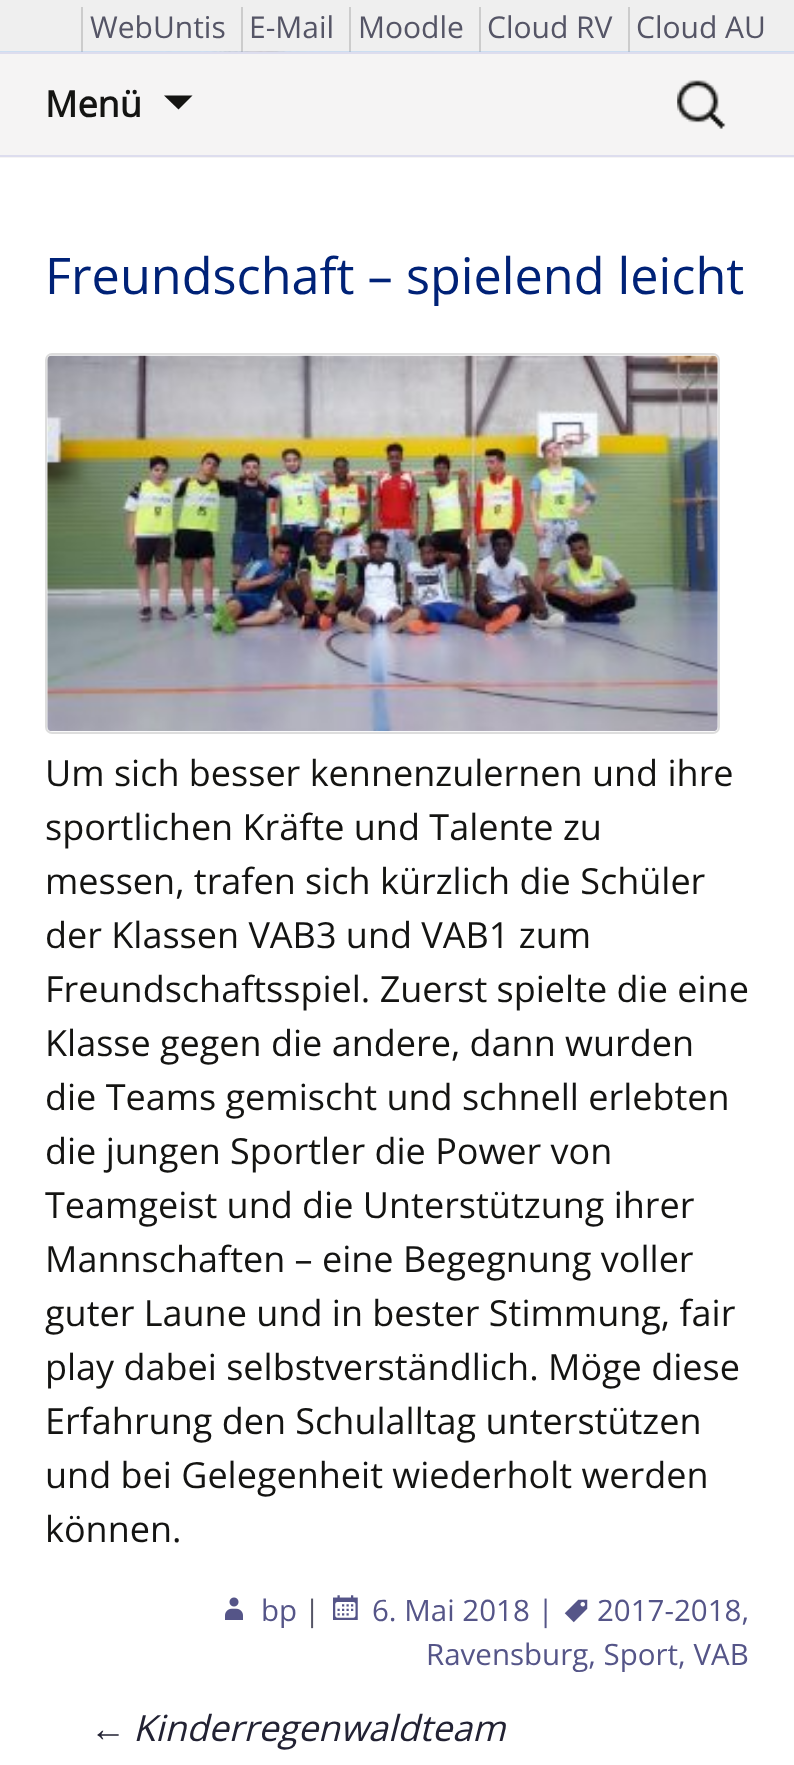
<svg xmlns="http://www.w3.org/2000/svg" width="794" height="1765">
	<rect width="100%" height="100%" fill="#FFFFFF" />
	<rect x="0" y="0" width="794" height="52" fill="#EFEFEF" />
	<rect x="81" y="7" width="2" height="45" fill="#CCCCCC" />
	<text x="90" y="38" font-family="Open Sans" font-size="30" fill="#555566">WebUntis</text>
	<rect x="241" y="7" width="2" height="45" fill="#CCCCCC" />
	<text x="249" y="38" font-family="Open Sans" font-size="30" fill="#555566">E-Mail</text>
	<rect x="349" y="7" width="2" height="45" fill="#CCCCCC" />
	<text x="358" y="38" font-family="Open Sans" font-size="30" fill="#555566">Moodle</text>
	<rect x="479" y="7" width="2" height="45" fill="#CCCCCC" />
	<text x="487" y="38" font-family="Open Sans" font-size="30" fill="#555566">Cloud RV</text>
	<rect x="628" y="7" width="2" height="45" fill="#CCCCCC" />
	<text x="636" y="38" font-family="Open Sans" font-size="30" fill="#555566">Cloud AU</text>
	<image x="0" y="51" width="794" height="1" href="assets/img1.png" />
	<rect x="0" y="54" width="794" height="104" fill="#F5F4F4" />
	<rect x="0" y="52" width="794" height="2" fill="#DDDDEE" />
	<rect x="0" y="155" width="794" height="2" fill="#DDDDEE" />
	<text x="45" y="117" font-family="Open Sans" font-size="36" font-weight="700" fill="#141412">Menü</text>
	<path d="M164 95.5L178.5 109.5L192.5 95.5Z" fill="#141412" />
	<image x="677" y="80" width="49" height="49" href="assets/img2.png" />
	<text x="45" y="294" font-family="Open Sans" font-size="50.4" fill="#002277">Freundschaft – spielend leicht</text>
	<rect x="46" y="354" width="673" height="379" rx="6" fill="none" stroke="#DDDDDD" stroke-width="2" />
	<image x="47" y="355" width="671" height="377" href="assets/img3.png" />
	<g font-family="Open Sans" font-size="36" fill="#141412">
		<text x="45" y="786">Um sich besser kennenzulernen und ihre</text>
		<text x="45" y="840">sportlichen Kräfte und Talente zu</text>
		<text x="45" y="894">messen, trafen sich kürzlich die Schüler</text>
		<text x="45" y="948">der Klassen VAB3 und VAB1 zum</text>
		<text x="45" y="1002">Freundschaftsspiel. Zuerst spielte die eine</text>
		<text x="45" y="1056">Klasse gegen die andere, dann wurden</text>
		<text x="45" y="1110">die Teams gemischt und schnell erlebten</text>
		<text x="45" y="1164">die jungen Sportler die Power von</text>
		<text x="45" y="1218">Teamgeist und die Unterstützung ihrer</text>
		<text x="45" y="1272">Mannschaften – eine Begegnung voller</text>
		<text x="45" y="1326">guter Laune und in bester Stimmung, fair</text>
		<text x="45" y="1380">play dabei selbstverständlich. Möge diese</text>
		<text x="45" y="1434">Erfahrung den Schulalltag unterstützen</text>
		<text x="45" y="1488">und bei Gelegenheit wiederholt werden</text>
		<text x="45" y="1542">können.</text>
	</g>
	<image x="225" y="1597" width="18" height="23" href="assets/img4.png" />
	<text x="261" y="1621" font-family="Open Sans" font-size="29.5" fill="#555588">bp</text>
	<text x="304" y="1621" font-family="Open Sans" font-size="29.5" fill="#555566">|</text>
	<image x="333" y="1595" width="25" height="25" href="assets/img5.png" />
	<text x="372" y="1621" font-family="Open Sans" font-size="29.5" fill="#555588">6. Mai 2018 |</text>
	<image x="564" y="1599" width="24" height="24" href="assets/img6.png" />
	<g font-family="Open Sans" font-size="29.5" fill="#555588">
		<text x="597" y="1621">2017-2018,</text>
		<text x="426" y="1665">Ravensburg, Sport, VAB</text>
	</g>
	<text x="90" y="1741" font-family="Liberation Sans" font-size="36" font-style="italic" fill="#222233">←</text>
	<text x="133" y="1741" font-family="Open Sans" font-size="36" font-style="italic" fill="#222233">Kinderregenwaldteam</text>
</svg>
